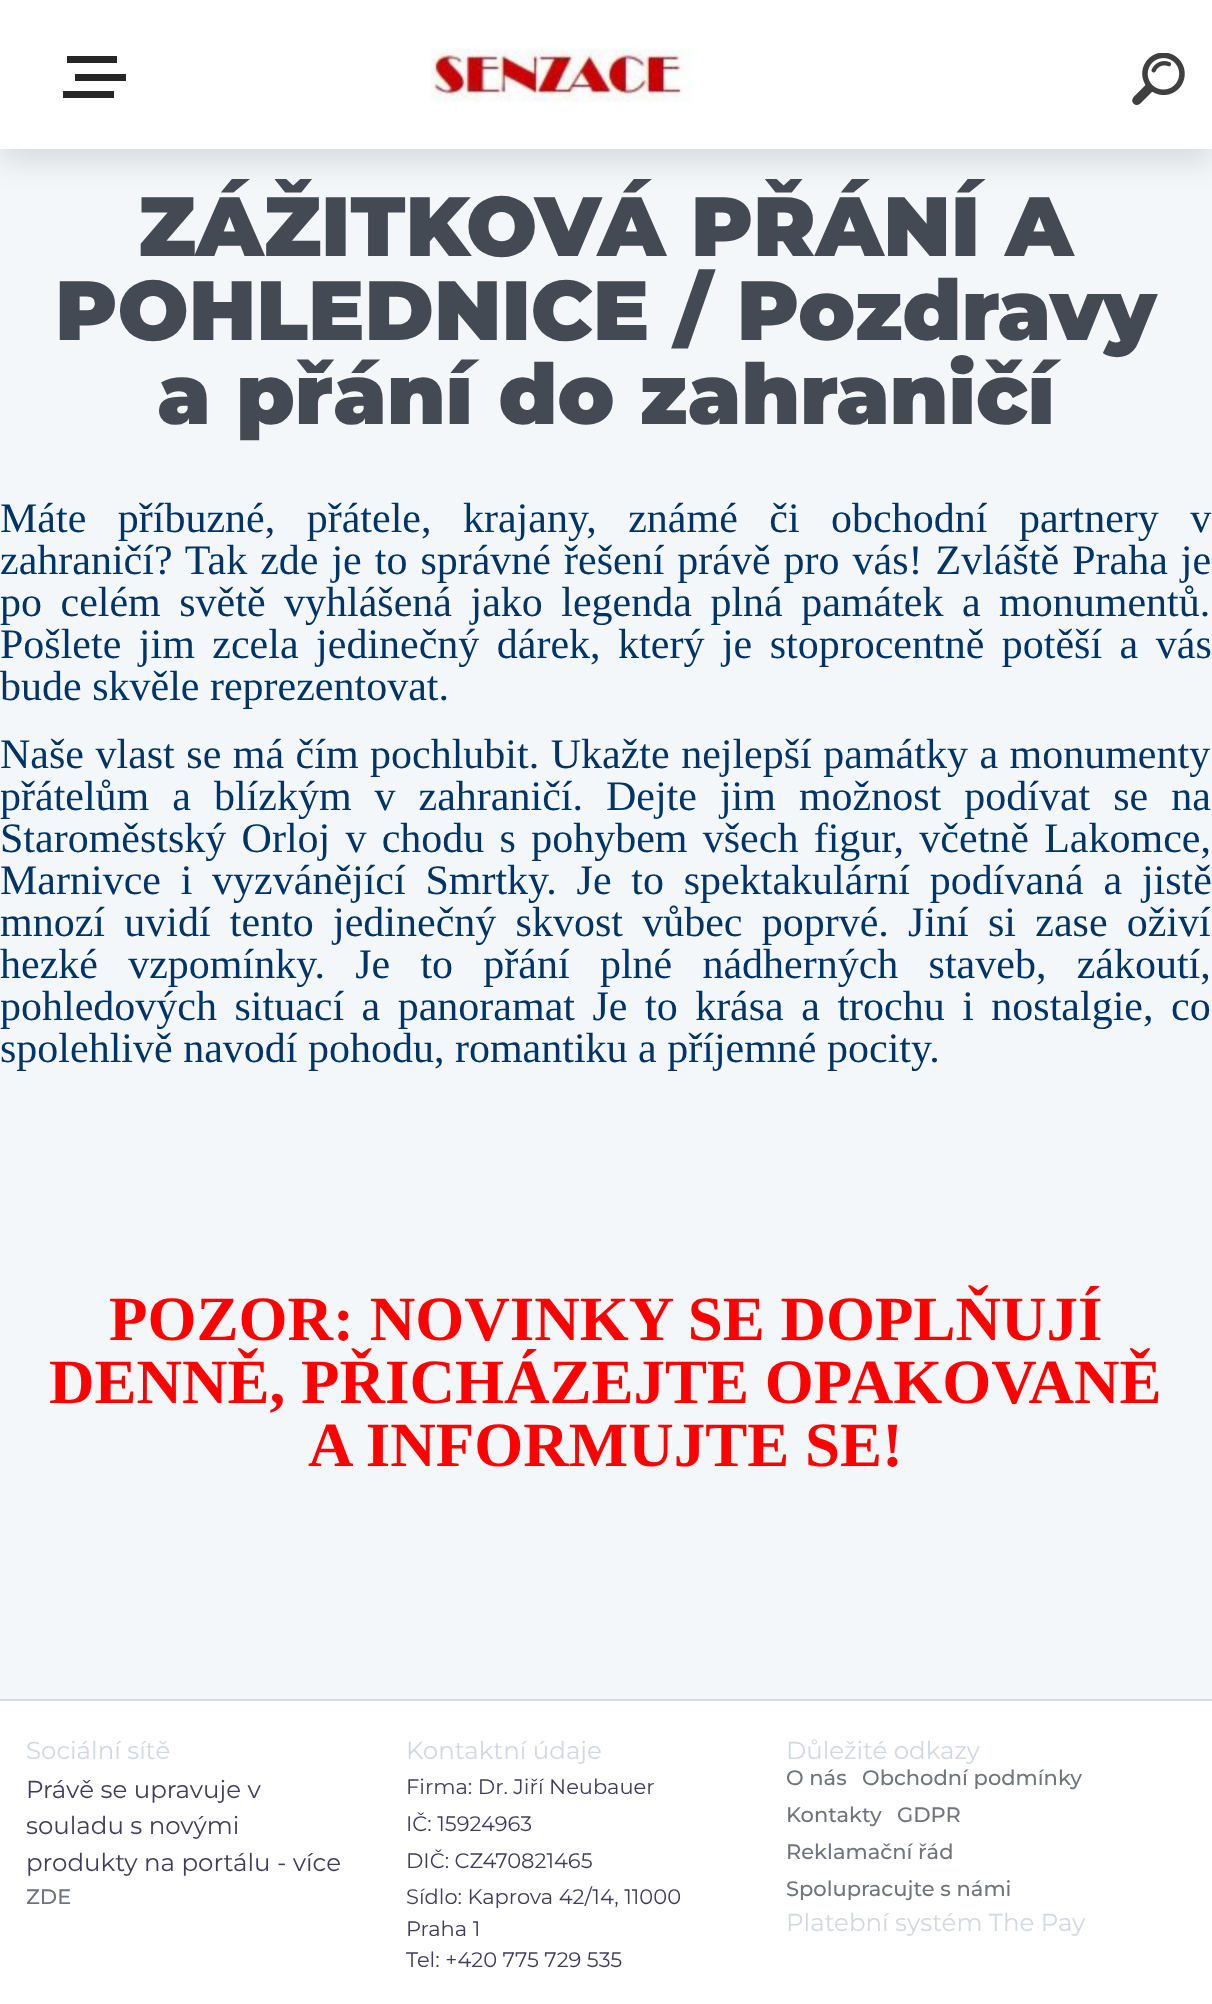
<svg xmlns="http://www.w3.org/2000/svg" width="1212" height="2004">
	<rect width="100%" height="100%" fill="#FFFFFF" />
	<rect x="0" y="149" width="1212" height="1550" fill="#F4F7F9" />
	<rect x="0" y="14" width="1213" height="149" fill="#000000" fill-opacity="0.1" filter="blur(14px)" />
	<rect x="0" y="0" width="1212" height="149" fill="#FFFFFF" />
	<rect x="67" y="56" width="50" height="7" fill="#262626" />
	<rect x="75" y="74" width="51" height="7" fill="#262626" />
	<rect x="63" y="91" width="51" height="7" fill="#262626" />
	<image x="430" y="47" width="263" height="56" href="assets/img1.png" />
	<image x="1132" y="53" width="53" height="52" href="assets/img2.png" />
	<g font-family="Montserrat" font-size="84" font-weight="900" fill="#434A54">
		<text x="138" y="256">ZÁŽITKOVÁ PŘÁNÍ A</text>
		<text x="55" y="340">POHLEDNICE / Pozdravy</text>
		<text x="157" y="424">a přání do zahraničí</text>
	</g>
	<g font-family="Liberation Serif" font-size="42" fill="#003366">
		<text x="0" y="532" word-spacing="21">Máte příbuzné, přátele, krajany, známé či obchodní partnery v</text>
		<text x="0" y="574" word-spacing="2.5">zahraničí? Tak zde je to správné řešení právě pro vás! Zvláště Praha je</text>
		<text x="0" y="616" word-spacing="8">po celém světě vyhlášená jako legenda plná památek a monumentů.</text>
		<text x="0" y="658" word-spacing="7">Pošlete jim zcela jedinečný dárek, který je stoprocentně potěší a vás</text>
		<text x="0" y="700">bude skvěle reprezentovat.</text>
		<text x="0" y="768" word-spacing="1">Naše vlast se má čím pochlubit. Ukažte nejlepší památky a monumenty</text>
		<text x="0" y="810" word-spacing="12.5">přátelům a blízkým v zahraničí. Dejte jim možnost podívat se na</text>
		<text x="0" y="852" word-spacing="4.75">Staroměstský Orloj v chodu s pohybem všech figur, včetně Lakomce,</text>
		<text x="0" y="894" word-spacing="9.25">Marnivce i vyzvánějící Smrtky. Je to spektakulární podívaná a jistě</text>
		<text x="0" y="936" word-spacing="8.75">mnozí uvidí tento jedinečný skvost vůbec poprvé. Jiní si zase oživí</text>
		<text x="0" y="978" word-spacing="19.75">hezké vzpomínky. Je to přání plné nádherných staveb, zákoutí,</text>
		<text x="0" y="1020" word-spacing="7">pohledových situací a panoramat Je to krása a trochu i nostalgie, co</text>
		<text x="0" y="1062">spolehlivě navodí pohodu, romantiku a příjemné pocity.</text>
	</g>
	<g font-family="Liberation Serif" font-size="63" font-weight="700" fill="#FF0000">
		<text x="109" y="1340">POZOR: NOVINKY SE DOPLŇUJÍ</text>
		<text x="49" y="1403">DENNĚ, PŘICHÁZEJTE OPAKOVANĚ</text>
		<text x="308" y="1466">A INFORMUJTE SE!</text>
	</g>
	<rect x="0" y="1699" width="1212" height="2" fill="#DADADA" />
	<text x="26" y="1759" font-family="Montserrat" font-size="24.5" fill="#D2D8E0">Sociální sítě</text>
	<g font-family="Montserrat" font-size="24.5" fill="#3F3D59">
		<text x="26" y="1798">Právě se upravuje v</text>
		<text x="26" y="1834">souladu s novými</text>
		<text x="26" y="1871">produkty na portálu - více</text>
	</g>
	<text x="26" y="1904" font-family="Montserrat" font-size="21" font-weight="500" fill="#71757B">ZDE</text>
	<text x="406" y="1759" font-family="Montserrat" font-size="24.5" fill="#D2D8E0">Kontaktní údaje</text>
	<g font-family="Montserrat" font-size="21" fill="#3F3D59">
		<text x="406" y="1794">Firma: Dr. Jiří Neubauer</text>
		<text x="406" y="1831">IČ: 15924963</text>
		<text x="406" y="1868">DIČ: CZ470821465</text>
		<text x="406" y="1904">Sídlo: Kaprova 42/14, 11000</text>
		<text x="406" y="1936">Praha 1</text>
		<text x="406" y="1967">Tel: +420 775 729 535</text>
	</g>
	<text x="786" y="1759" font-family="Montserrat" font-size="24.5" fill="#D2D8E0">Důležité odkazy</text>
	<g font-family="Montserrat" font-size="21" font-weight="500" fill="#71757B">
		<text x="786" y="1785">O nás</text>
		<text x="862" y="1785">Obchodní podmínky</text>
		<text x="786" y="1822">Kontakty</text>
		<text x="897" y="1822">GDPR</text>
		<text x="786" y="1859">Reklamační řád</text>
		<text x="786" y="1896">Spolupracujte s námi</text>
	</g>
	<text x="786" y="1931" font-family="Montserrat" font-size="24.5" fill="#D2D8E0">Platební systém The Pay</text>
</svg>
